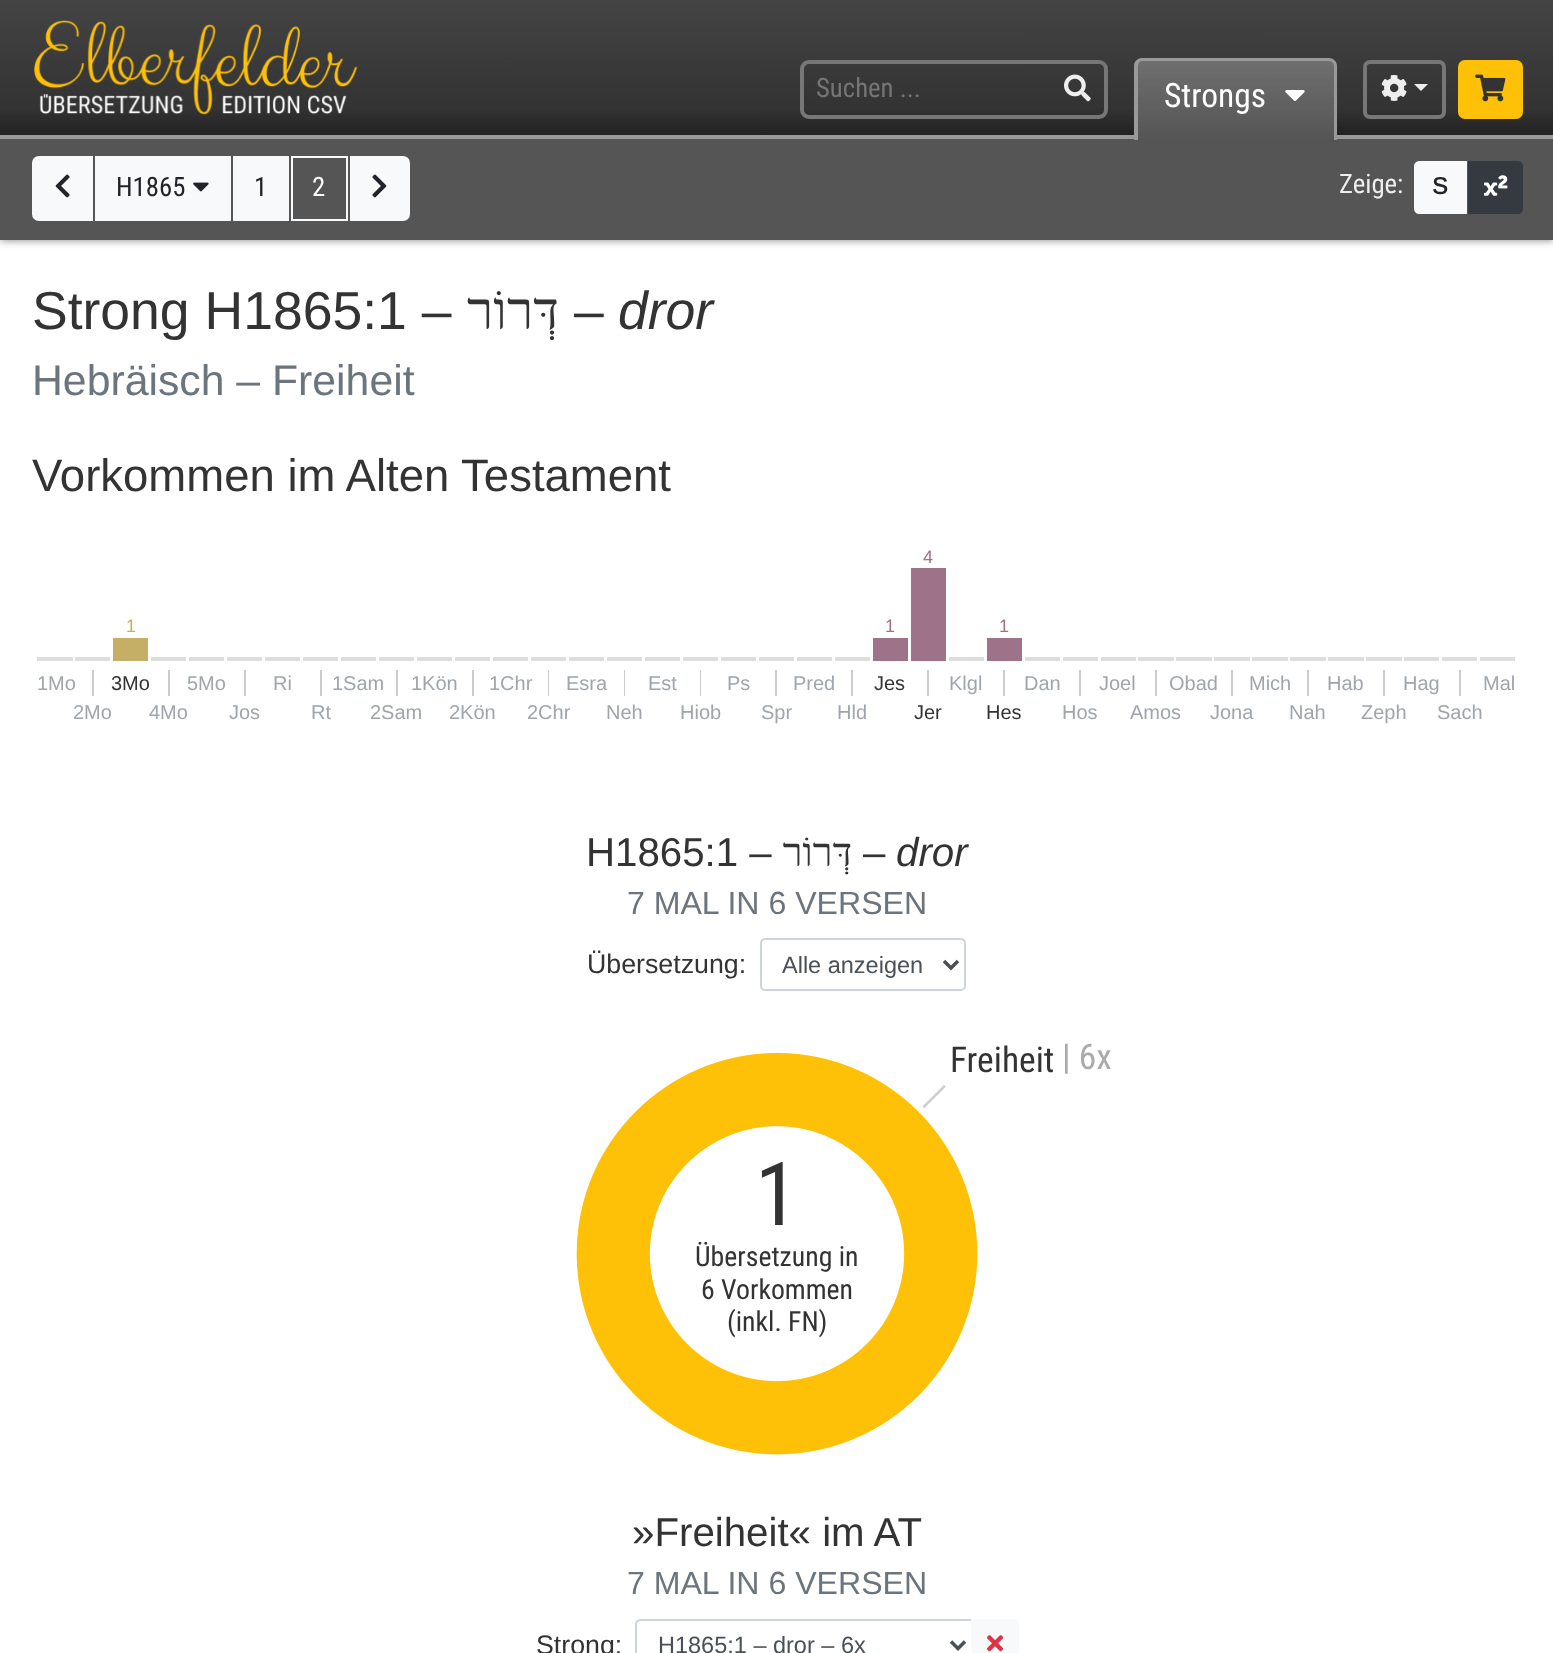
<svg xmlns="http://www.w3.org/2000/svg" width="1553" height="1653">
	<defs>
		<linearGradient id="g1" gradientUnits="userSpaceOnUse" x1="777" y1="135" x2="777" y2="0"><stop offset="0" stop-color="#222222" /><stop offset="0.2" stop-color="#333333" /><stop offset="1" stop-color="#444444" /></linearGradient>
		<clipPath id="clip1"><path d="M1143 58H1328C1333 58 1337 62 1337 67V140H1134V67C1134 62 1138 58 1143 58Z" /></clipPath>
		<linearGradient id="g2" gradientUnits="userSpaceOnUse" x1="1236" y1="61" x2="1236" y2="140"><stop offset="0" stop-color="#6F6F6F" /><stop offset="1" stop-color="#555555" /></linearGradient>
	</defs>
	<rect width="100%" height="100%" fill="#FFFFFF" />
	<rect x="0" y="135" width="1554" height="105" fill="#000000" fill-opacity="0.5" filter="blur(4.5px)" />
	<rect x="0" y="0" width="1553" height="135" fill="url(#g1)" />
	<image x="34" y="20" width="324" height="95" href="assets/img1.png" />
	<rect x="802" y="62" width="304" height="55" rx="7" fill="none" stroke="#777777" stroke-width="4" />
	<text x="816" y="97" font-family="Roboto Condensed" font-size="26.75" fill="#757575">Suchen ...</text>
	<image x="1064" y="74" width="27" height="28" href="assets/img2.png" />
	<rect x="0" y="139" width="1553" height="101" fill="#555555" />
	<rect x="0" y="135" width="1553" height="4" fill="#999999" />
	<g clip-path="url(#clip1)">
		<rect x="1134" y="61" width="203" height="79" fill="url(#g2)" />
	</g>
	<path d="M1142 58H1329C1333 58 1337 61 1337 66V140H1134V66C1134 61 1138 58 1142 58ZM1142 61H1329C1331 61 1334 63 1334 66V140H1138V66C1138 63 1140 61 1142 61Z" fill="#999999" fill-rule="evenodd" />
	<text x="1164" y="107" font-family="Roboto Condensed" font-size="33.5" fill="#FFFFFF">Strongs</text>
	<image x="1285" y="90" width="20" height="11" href="assets/img3.png" />
	<rect x="1365" y="62" width="79" height="55" rx="5" fill="none" stroke="#777777" stroke-width="4" />
	<image x="1381" y="75" width="26" height="26" href="assets/img4.png" />
	<path d="M1414 84H1428L1421 91Z" fill="#EEEEEE" />
	<rect x="1460" y="62" width="61" height="55" rx="5" fill="#FFC107" stroke="#FFC107" stroke-width="4" />
	<image x="1475" y="74" width="31" height="28" href="assets/img5.png" />
	<path d="M39 157H92V220H39C35.5 220 33 217.5 33 214V163C33 159.5 35.5 157 39 157Z" fill="#F8F9FA" stroke="#F8F9FA" stroke-width="2" />
	<image x="55" y="174" width="15" height="24" href="assets/img6.png" />
	<rect x="95" y="156" width="136" height="65" fill="#F8F9FA" />
	<text x="116" y="196" font-family="Roboto Condensed" font-size="26.75" fill="#212529">H1865</text>
	<image x="193" y="182" width="16" height="10" href="assets/img7.png" />
	<rect x="233" y="156" width="56" height="65" fill="#F8F9FA" />
	<text x="254" y="196" font-family="Roboto Condensed" font-size="26.75" fill="#212529">1</text>
	<rect x="292" y="157" width="55" height="63" fill="none" stroke="#F8F9FA" stroke-width="2" />
	<text x="312" y="196" font-family="Roboto Condensed" font-size="26.75" fill="#F8F9FA">2</text>
	<path d="M351 157H403C406.5 157 409 159.5 409 163V214C409 217.5 406.5 220 403 220H351Z" fill="#F8F9FA" stroke="#F8F9FA" stroke-width="2" />
	<image x="372" y="174" width="15" height="24" href="assets/img8.png" />
	<text x="1339" y="193" font-family="Roboto Condensed" font-size="26.75" fill="#EEEEEE">Zeige:</text>
	<path d="M1419 162H1466V213H1419C1417 213 1415 211 1415 209V166C1415 164 1417 162 1419 162Z" fill="#F8F9FA" stroke="#F8F9FA" stroke-width="2" />
	<text x="1432" y="194" font-family="Arimo" font-size="23.5" font-weight="700" fill="#212529">S</text>
	<path d="M1469 162H1518C1520 162 1522 164 1522 166V209C1522 211 1520 213 1518 213H1469Z" fill="#343A40" stroke="#343A40" stroke-width="2" />
	<image x="1484" y="175" width="24" height="21" href="assets/img9.png" />
	<text x="32" y="329" font-family="Arimo" font-size="53.5" fill="#333333">Strong H1865:1 –</text>
	<text x="559" y="329" font-family="Liberation Serif" font-size="53.5" direction="rtl" fill="#333333">דְּרוֹר</text>
	<text x="574" y="329" font-family="Arimo" font-size="53.5" fill="#333333">–</text>
	<text x="618" y="329" font-family="Arimo" font-size="53.5" font-style="italic" fill="#333333">dror</text>
	<text x="32" y="395" font-family="Arimo" font-size="42.75" fill="#6C757D">Hebräisch – Freiheit</text>
	<text x="32" y="491" font-family="Arimo" font-size="45.5" fill="#333333">Vorkommen im Alten Testament</text>
	<image x="37" y="568" width="1478" height="128" href="assets/img10.png" />
	<text x="923" y="563" font-family="Arimo" font-size="18" fill="#9E7288">4</text>
	<text x="126" y="632" font-family="Arimo" font-size="18" fill="#C5AE65">1</text>
	<g font-family="Arimo" font-size="18" fill="#9E7288">
		<text x="885" y="632">1</text>
		<text x="999" y="632">1</text>
	</g>
	<text x="37" y="690" font-family="Arimo" font-size="20" fill="#9FA5AB">1Mo</text>
	<text x="111" y="690" font-family="Arimo" font-size="20" fill="#333333">3Mo</text>
	<g font-family="Arimo" font-size="20" fill="#9FA5AB">
		<text x="187" y="690">5Mo</text>
		<text x="273" y="690">Ri</text>
		<text x="332" y="690">1Sam</text>
		<text x="411" y="690">1Kön</text>
		<text x="489" y="690">1Chr</text>
		<text x="566" y="690">Esra</text>
		<text x="648" y="690">Est</text>
		<text x="727" y="690">Ps</text>
		<text x="793" y="690">Pred</text>
	</g>
	<text x="874" y="690" font-family="Arimo" font-size="20" fill="#333333">Jes</text>
	<g font-family="Arimo" font-size="20" fill="#9FA5AB">
		<text x="949" y="690">Klgl</text>
		<text x="1024" y="690">Dan</text>
		<text x="1099" y="690">Joel</text>
		<text x="1169" y="690">Obad</text>
		<text x="1249" y="690">Mich</text>
		<text x="1327" y="690">Hab</text>
		<text x="1403" y="690">Hag</text>
		<text x="1483" y="690">Mal</text>
		<text x="73" y="719">2Mo</text>
		<text x="149" y="719">4Mo</text>
		<text x="229" y="719">Jos</text>
		<text x="311" y="719">Rt</text>
		<text x="370" y="719">2Sam</text>
		<text x="449" y="719">2Kön</text>
		<text x="527" y="719">2Chr</text>
		<text x="606" y="719">Neh</text>
		<text x="680" y="719">Hiob</text>
		<text x="761" y="719">Spr</text>
		<text x="837" y="719">Hld</text>
	</g>
	<g font-family="Arimo" font-size="20" fill="#333333">
		<text x="914" y="719">Jer</text>
		<text x="986" y="719">Hes</text>
	</g>
	<g font-family="Arimo" font-size="20" fill="#9FA5AB">
		<text x="1062" y="719">Hos</text>
		<text x="1130" y="719">Amos</text>
		<text x="1210" y="719">Jona</text>
		<text x="1289" y="719">Nah</text>
		<text x="1361" y="719">Zeph</text>
		<text x="1437" y="719">Sach</text>
	</g>
	<text x="586" y="866" font-family="Arimo" font-size="40.25" fill="#333333">H1865:1 –</text>
	<text x="852" y="866" font-family="Liberation Serif" font-size="40.25" direction="rtl" fill="#333333">דְּרוֹר</text>
	<text x="863" y="866" font-family="Arimo" font-size="40.25" fill="#333333">–</text>
	<text x="896" y="866" font-family="Arimo" font-size="40.25" font-style="italic" fill="#333333">dror</text>
	<text x="627" y="914" font-family="Arimo" font-size="32.1" fill="#6C757D">7 MAL IN 6 VERSEN</text>
	<text x="587" y="973" font-family="Arimo" font-size="26.75" fill="#333333">Übersetzung:</text>
	<rect x="761" y="939" width="204" height="51" rx="4" fill="none" stroke="#CED4DA" stroke-width="2" />
	<path d="M944 961L951 968L958 961" fill="none" stroke="#495057" stroke-width="3.5" />
	<text x="782" y="973" font-family="Arimo" font-size="23.5" fill="#495057">Alle anzeigen</text>
	<text x="755" y="1225" font-family="Roboto Condensed" font-size="88" fill="#333333">1</text>
	<g font-family="Roboto Condensed" font-size="27.75" fill="#333333">
		<text x="695" y="1266">Übersetzung in</text>
		<text x="701" y="1299">6 Vorkommen</text>
		<text x="727" y="1331">(inkl. FN)</text>
	</g>
	<image x="576" y="1052" width="402" height="403" href="assets/img11.png" />
	<text x="950" y="1072" font-family="Roboto Condensed" font-size="35.5" fill="#333333">Freiheit</text>
	<text x="1062" y="1069" font-family="Roboto Condensed" font-size="35.5" fill="#AAAAAA">| 6x</text>
	<text x="632" y="1546" font-family="Arimo" font-size="40.25" fill="#333333">»Freiheit« im AT</text>
	<text x="627" y="1594" font-family="Arimo" font-size="32.1" fill="#6C757D">7 MAL IN 6 VERSEN</text>
	<text x="536" y="1654" font-family="Arimo" font-size="26.75" fill="#333333">Strong:</text>
	<path d="M640 1620H972V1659H640C638 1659 636 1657 636 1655V1624C636 1622 638 1620 640 1620Z" fill="none" stroke="#CED4DA" stroke-width="2" />
	<path d="M951 1641.5L958 1648.5L965 1641.5" fill="none" stroke="#495057" stroke-width="3.5" />
	<text x="658" y="1653" font-family="Arimo" font-size="23.5" fill="#495057">H1865:1 – dror – 6x</text>
	<path d="M971 1619H1014C1017 1619 1019 1621 1019 1624V1653C1019 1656 1017 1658 1014 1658H971Z" fill="#F8F9FA" />
	<image x="987" y="1635" width="17" height="17" href="assets/img12.png" />
</svg>
